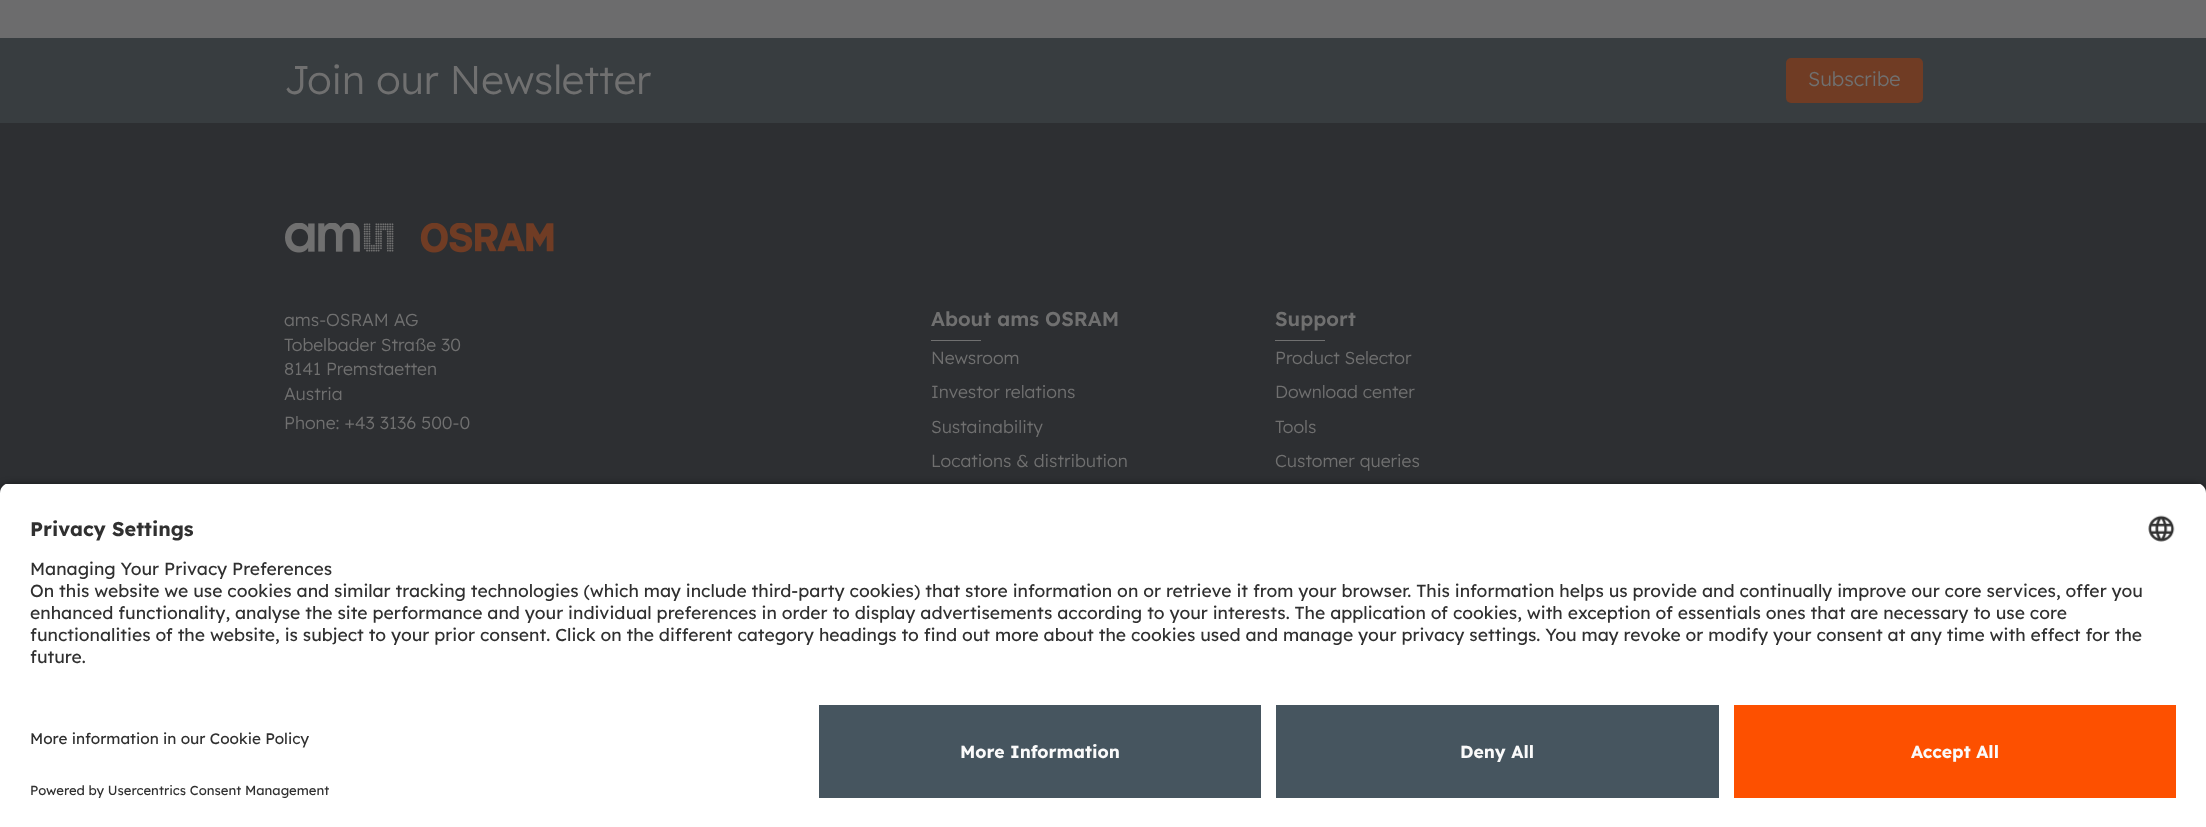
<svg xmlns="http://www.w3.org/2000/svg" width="2206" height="827">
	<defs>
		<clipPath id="clip1"><path d="M10 483H2196C2201.5 483 2206 487.5 2206 493V695H0V493C0 487.5 4.5 483 10 483Z" /></clipPath>
	</defs>
	<rect width="100%" height="100%" fill="#6C6C6D" />
	<rect x="0" y="38" width="2206" height="85" fill="#383D40" />
	<text x="284" y="94" font-family="Lexend" font-size="40" font-weight="300" fill="#707070">Join our Newsletter</text>
	<rect x="1786" y="58" width="137" height="45" rx="5" fill="#703C24" />
	<text x="1808" y="86" font-family="Lexend" font-size="20" font-weight="300" fill="#707070">Subscribe</text>
	<rect x="0" y="123" width="2206" height="370" fill="#2D2F32" />
	<image x="285" y="223" width="269" height="30" href="assets/img1.png" />
	<g font-family="Lexend" font-size="17.5" font-weight="300" fill="#707070">
		<text x="284" y="326">ams-OSRAM AG</text>
		<text x="284" y="351">Tobelbader Straße 30</text>
		<text x="284" y="375">8141 Premstaetten</text>
		<text x="284" y="400">Austria</text>
		<text x="284" y="429">Phone: +43 3136 500-0</text>
	</g>
	<text x="931" y="326" font-family="Lexend" font-size="20" font-weight="600" fill="#707070">About ams OSRAM</text>
	<rect x="931" y="340" width="50" height="1" fill="#707070" />
	<g font-family="Lexend" font-size="17.5" font-weight="300" fill="#707070">
		<text x="931" y="364">Newsroom</text>
		<text x="931" y="398">Investor relations</text>
		<text x="931" y="433">Sustainability</text>
		<text x="931" y="467">Locations &amp; distribution</text>
	</g>
	<text x="1275" y="326" font-family="Lexend" font-size="20" font-weight="600" fill="#707070">Support</text>
	<rect x="1275" y="340" width="50" height="1" fill="#707070" />
	<g font-family="Lexend" font-size="17.5" font-weight="300" fill="#707070">
		<text x="1275" y="364">Product Selector</text>
		<text x="1275" y="398">Download center</text>
		<text x="1275" y="433">Tools</text>
		<text x="1275" y="467">Customer queries</text>
	</g>
	<rect x="0" y="486" width="2206" height="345" rx="10" fill="#000000" fill-opacity="0.8" filter="blur(4.5px)" />
	<g clip-path="url(#clip1)">
		<rect x="0" y="484" width="2206" height="211" fill="#FFFFFF" />
	</g>
	<text x="30" y="536" font-family="Lexend" font-size="19.75" font-weight="700" fill="#303030">Privacy Settings</text>
	<image x="2148" y="515" width="27" height="27" href="assets/img2.png" />
	<g font-family="Lexend" font-size="17.5" fill="#303030">
		<text x="30" y="575">Managing Your Privacy Preferences</text>
		<text x="30" y="597">On this website we use cookies and similar tracking technologies (which may include third-party cookies) that store information on or retrieve it from your browser. This information helps us provide and continually improve our core services, offer you</text>
		<text x="30" y="619">enhanced functionality, analyse the site performance and your individual preferences in order to display advertisements according to your interests. The application of cookies, with exception of essentials ones that are necessary to use core</text>
		<text x="30" y="641">functionalities of the website, is subject to your prior consent. Click on the different category headings to find out more about the cookies used and manage your privacy settings. You may revoke or modify your consent at any time with effect for the</text>
		<text x="30" y="663">future.</text>
	</g>
	<rect x="0" y="695" width="2206" height="132" fill="#FFFFFF" />
	<text x="30" y="744" font-family="Lexend" font-size="15.3" fill="#303030">More information in our Cookie Policy</text>
	<text x="30" y="795" font-family="Lexend" font-size="13.1" fill="#303030">Powered by Usercentrics Consent Management</text>
	<rect x="819" y="705" width="442" height="93" fill="#46555F" />
	<text x="960" y="758" font-family="Lexend" font-size="17.5" font-weight="700" fill="#FAFAFA">More Information</text>
	<rect x="1276" y="705" width="443" height="93" fill="#46555F" />
	<text x="1460" y="758" font-family="Lexend" font-size="17.5" font-weight="700" fill="#FAFAFA">Deny All</text>
	<rect x="1734" y="705" width="442" height="93" fill="#FD5000" />
	<text x="1911" y="758" font-family="Lexend" font-size="17.5" font-weight="700" fill="#FAFAFA">Accept All</text>
</svg>
